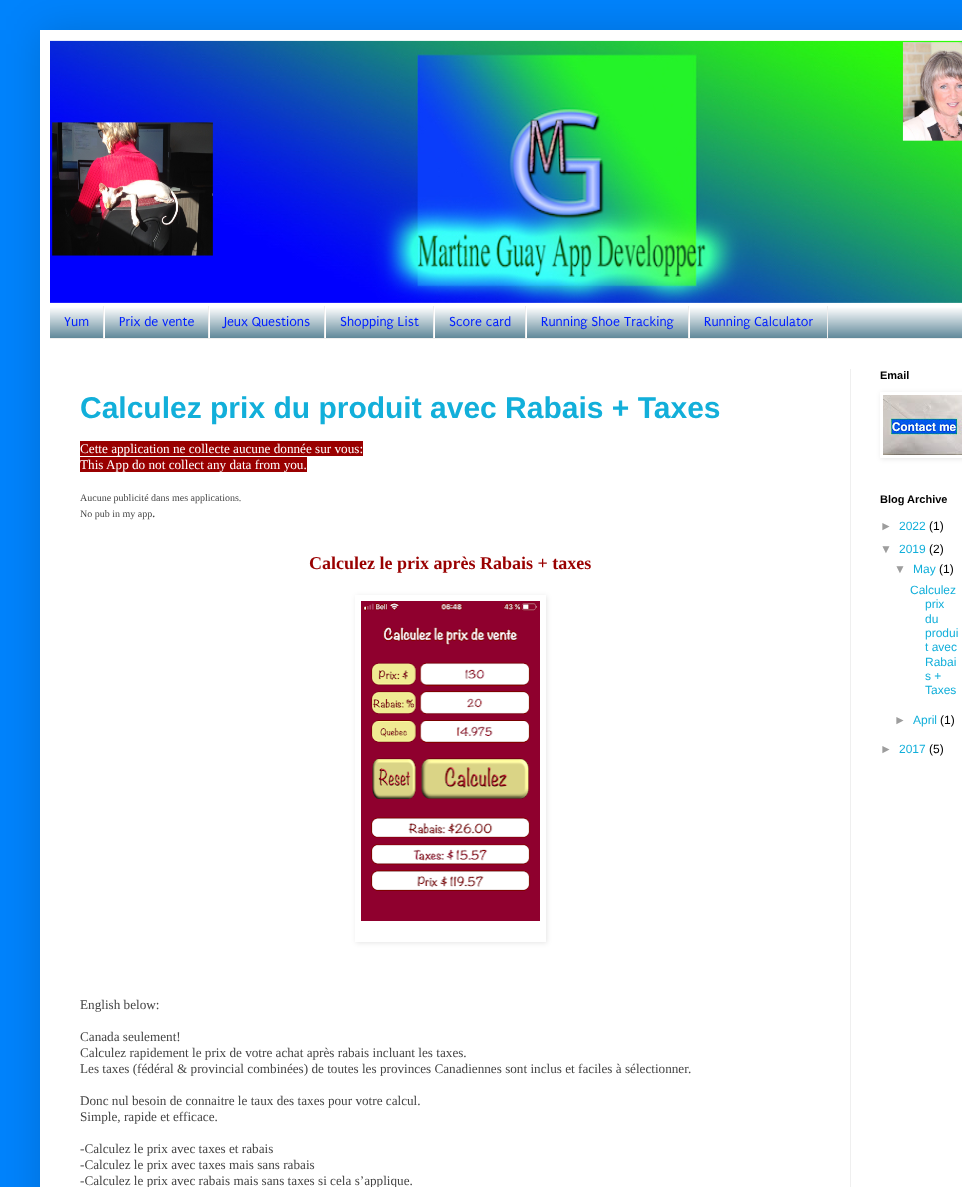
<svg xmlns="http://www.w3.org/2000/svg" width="962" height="1187">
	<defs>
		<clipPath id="clip1"><path d="M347 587H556V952H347ZM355 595H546V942H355Z" clip-rule="evenodd" /></clipPath>
		<clipPath id="clip2"><path d="M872 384H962V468H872ZM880 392H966V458H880Z" clip-rule="evenodd" /></clipPath>
	</defs>
	<rect width="100%" height="100%" fill="#0083FC" />
	<rect x="40" y="30" width="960" height="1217" fill="#000000" fill-opacity="0.15" filter="blur(20px)" />
	<rect x="40" y="30" width="922" height="1157" fill="#FFFFFF" />
	<image x="50" y="40" width="912" height="266" href="assets/img1.png" />
	<rect x="50" y="307" width="912" height="31" fill="#3D6E83" />
	<image x="50" y="306" width="912" height="32" href="assets/img2.png" />
	<rect x="50" y="338" width="912" height="1" fill="#EEEEEE" />
	<rect x="103" y="306" width="1" height="32" fill="#EEEEEE" />
	<text x="64" y="326" font-family="Puritan" font-size="14" fill="#001FFF">Yum</text>
	<rect x="208" y="306" width="1" height="32" fill="#EEEEEE" />
	<rect x="104" y="306" width="1" height="32" fill="#FFFFFF" />
	<text x="119" y="326" font-family="Puritan" font-size="14" fill="#001FFF">Prix de vente</text>
	<rect x="324" y="306" width="1" height="32" fill="#EEEEEE" />
	<rect x="209" y="306" width="1" height="32" fill="#FFFFFF" />
	<text x="224" y="326" font-family="Puritan" font-size="14" fill="#001FFF">Jeux Questions</text>
	<rect x="433" y="306" width="1" height="32" fill="#EEEEEE" />
	<rect x="325" y="306" width="1" height="32" fill="#FFFFFF" />
	<text x="340" y="326" font-family="Puritan" font-size="14" fill="#001FFF">Shopping List</text>
	<rect x="525" y="306" width="1" height="32" fill="#EEEEEE" />
	<rect x="434" y="306" width="1" height="32" fill="#FFFFFF" />
	<text x="449" y="326" font-family="Puritan" font-size="14" fill="#001FFF">Score card</text>
	<rect x="688" y="306" width="1" height="32" fill="#EEEEEE" />
	<rect x="526" y="306" width="1" height="32" fill="#FFFFFF" />
	<text x="541" y="326" font-family="Puritan" font-size="14" fill="#001FFF">Running Shoe Tracking</text>
	<rect x="827" y="306" width="1" height="32" fill="#EEEEEE" />
	<rect x="689" y="306" width="1" height="32" fill="#FFFFFF" />
	<text x="704" y="326" font-family="Puritan" font-size="14" fill="#001FFF">Running Calculator</text>
	<rect x="850" y="369" width="1" height="818" fill="#EFEFEF" />
	<text x="80" y="418" font-family="Liberation Sans" font-size="30" font-weight="700" fill="#12AFDA">Calculez prix du produit avec Rabais + Taxes</text>
	<rect x="80" y="441" width="283" height="15" fill="#990000" />
	<text x="80" y="453" font-family="Liberation Serif" font-size="13.2" fill="#FFFFFF">Cette application ne collecte aucune donnée sur vous:</text>
	<rect x="80" y="457" width="227" height="15" fill="#990000" />
	<text x="80" y="469" font-family="Liberation Serif" font-size="13.2" fill="#FFFFFF">This App do not collect any data from you.</text>
	<g font-family="Liberation Serif" font-size="10" fill="#454545">
		<text x="80" y="501">Aucune publicité dans mes applications.</text>
		<text x="80" y="517">No pub in my app</text>
	</g>
	<text x="152" y="517" font-family="Liberation Serif" font-size="13.2" fill="#454545">.</text>
	<text x="309" y="569" font-family="Liberation Serif" font-size="18" font-weight="700" fill="#990000">Calculez le prix après Rabais + taxes</text>
	<g clip-path="url(#clip1)">
		<rect x="356" y="596" width="191" height="347" fill="#000000" fill-opacity="0.1" filter="blur(2.5px)" />
	</g>
	<image x="361" y="601" width="179" height="320" href="assets/img3.png" />
	<g font-family="Liberation Serif" font-size="13.2" fill="#454545">
		<text x="80" y="1009">English below:</text>
		<text x="80" y="1041">Canada seulement!</text>
		<text x="80" y="1057">Calculez rapidement le prix de votre achat après rabais incluant les taxes.</text>
		<text x="80" y="1073">Les taxes (fédéral &amp; provincial combinées) de toutes les provinces Canadiennes sont inclus et faciles à sélectionner.</text>
		<text x="80" y="1105">Donc nul besoin de connaitre le taux des taxes pour votre calcul.</text>
		<text x="80" y="1121">Simple, rapide et efficace.</text>
		<text x="80" y="1153">-Calculez le prix avec taxes et rabais</text>
		<text x="80" y="1169">-Calculez le prix avec taxes mais sans rabais</text>
		<text x="80" y="1185">-Calculez le prix avec rabais mais sans taxes si cela s’applique.</text>
	</g>
	<text x="880" y="379" font-family="Liberation Sans" font-size="11" font-weight="700" fill="#000000">Email</text>
	<g clip-path="url(#clip2)">
		<rect x="881" y="393" width="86" height="66" fill="#000000" fill-opacity="0.1" filter="blur(2.5px)" />
	</g>
	<image x="883" y="395" width="79" height="60" href="assets/img4.png" />
	<text x="880" y="503" font-family="Liberation Sans" font-size="11" font-weight="700" fill="#000000">Blog Archive</text>
	<text x="880" y="530" font-family="Liberation Sans" font-size="12" fill="#9D9D9D">►</text>
	<text x="899" y="530" font-family="Liberation Sans" font-size="12" fill="#12AFDA">2022</text>
	<text x="929" y="530" font-family="Liberation Sans" font-size="12" fill="#000000">(1)</text>
	<text x="880" y="553" font-family="Liberation Sans" font-size="12" fill="#9D9D9D">▼</text>
	<text x="899" y="553" font-family="Liberation Sans" font-size="12" fill="#12AFDA">2019</text>
	<text x="929" y="553" font-family="Liberation Sans" font-size="12" fill="#000000">(2)</text>
	<text x="894" y="573" font-family="Liberation Sans" font-size="12" fill="#9D9D9D">▼</text>
	<text x="913" y="573" font-family="Liberation Sans" font-size="12" fill="#12AFDA">May</text>
	<text x="939" y="573" font-family="Liberation Sans" font-size="12" fill="#000000">(1)</text>
	<g font-family="Liberation Sans" font-size="12" fill="#12AFDA">
		<text x="910" y="594">Calculez</text>
		<text x="925" y="608">prix</text>
		<text x="925" y="623">du</text>
		<text x="925" y="637">produi</text>
		<text x="925" y="651">t avec</text>
		<text x="925" y="666">Rabai</text>
		<text x="925" y="680">s +</text>
		<text x="925" y="694">Taxes</text>
	</g>
	<text x="894" y="724" font-family="Liberation Sans" font-size="12" fill="#9D9D9D">►</text>
	<text x="913" y="724" font-family="Liberation Sans" font-size="12" fill="#12AFDA">April</text>
	<text x="940" y="724" font-family="Liberation Sans" font-size="12" fill="#000000">(1)</text>
	<text x="880" y="753" font-family="Liberation Sans" font-size="12" fill="#9D9D9D">►</text>
	<text x="899" y="753" font-family="Liberation Sans" font-size="12" fill="#12AFDA">2017</text>
	<text x="929" y="753" font-family="Liberation Sans" font-size="12" fill="#000000">(5)</text>
</svg>
